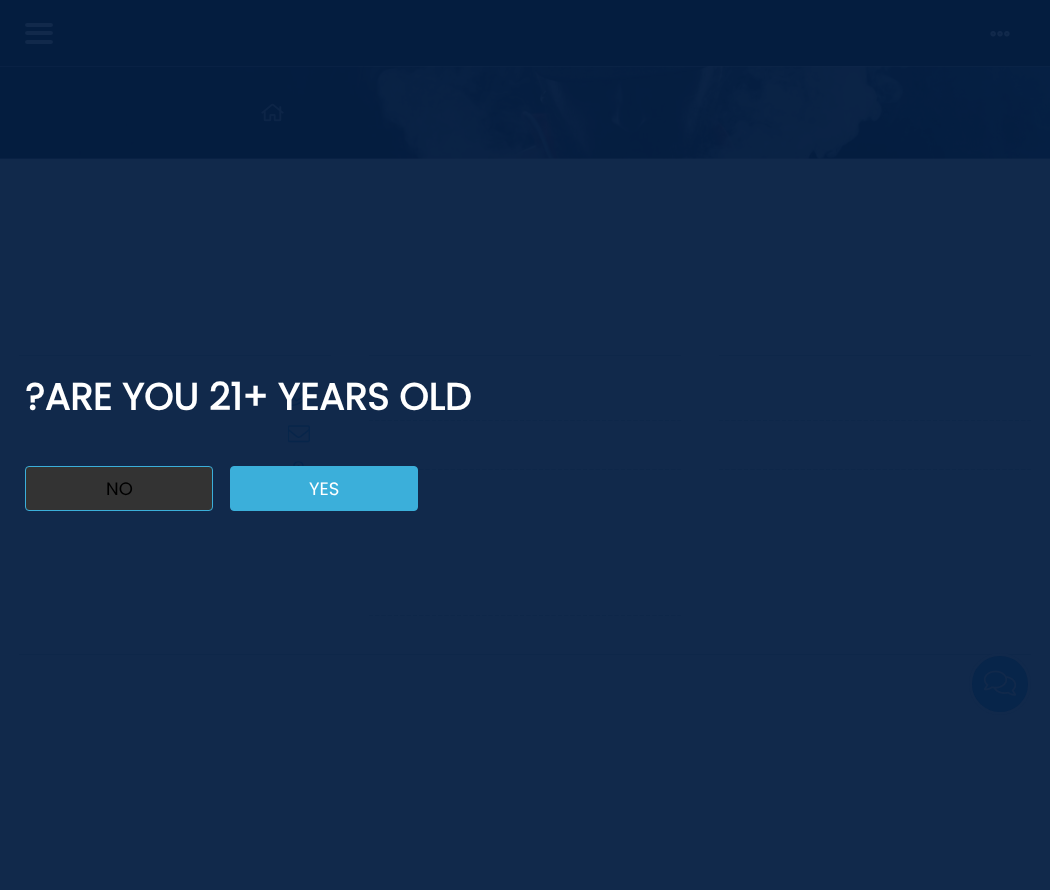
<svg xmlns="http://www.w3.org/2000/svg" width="1050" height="890">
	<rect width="100%" height="100%" fill="#11294B" />
	<rect x="0" y="0" width="1050" height="66" fill="#041D3F" />
	<rect x="25" y="31" width="28" height="4" rx="2" fill="#11294B" />
	<rect x="25" y="23" width="28" height="4" rx="2" fill="#11294B" />
	<rect x="25" y="40" width="28" height="4" rx="2" fill="#11294B" />
	<image x="990" y="31" width="20" height="6" href="assets/img1.png" />
	<image x="0" y="66" width="1050" height="93" href="assets/img2.png" />
	<image x="261" y="103" width="23" height="19" href="assets/img3.png" />
	<rect x="19" y="355" width="312" height="1" fill="#0E2749" />
	<image x="288" y="384" width="22" height="22" href="assets/img4.png" />
	<image x="288" y="425" width="22" height="18" href="assets/img5.png" />
	<image x="293" y="461" width="11" height="5" href="assets/img6.png" />
	<rect x="369" y="355" width="312" height="1" fill="#0E2749" />
	<path d="M369 420.5H681" fill="none" stroke="#0E2749" stroke-width="1.2" stroke-dasharray="3.75 2.55" />
	<path d="M369 469.5H681" fill="none" stroke="#0E2749" stroke-width="1.2" stroke-dasharray="3.75 2.55" />
	<path d="M369 615.5H681" fill="none" stroke="#0E2749" stroke-width="1.2" stroke-dasharray="3.75 2.55" />
	<rect x="719" y="355" width="312" height="1" fill="#0E2749" />
	<path d="M719 420.5H1031" fill="none" stroke="#0E2749" stroke-width="1.2" stroke-dasharray="3.75 2.55" />
	<path d="M719 469.5H1031" fill="none" stroke="#0E2749" stroke-width="1.2" stroke-dasharray="3.75 2.55" />
	<rect x="19" y="654" width="1012" height="1" fill="#0E2749" />
	<text x="25" y="410" font-family="Poppins" font-size="37.5" font-weight="700" fill="#FFFFFF">?ARE YOU 21+ YEARS OLD</text>
	<rect x="25.5" y="466.5" width="187" height="44" rx="3.5" fill="#333333" stroke="#3BAFDA" />
	<text x="106" y="495" font-family="Poppins" font-size="18" fill="#000000">NO</text>
	<rect x="230.5" y="466.5" width="187" height="44" rx="3.5" fill="#3BAFDA" stroke="#3BAFDA" />
	<text x="309" y="495" font-family="Poppins" font-size="18" fill="#FFFFFF">YES</text>
	<circle cx="1000" cy="684" r="29.5" fill="#07254A" stroke="#11294B" stroke-width="3" />
	<image x="984" y="670" width="32" height="26" href="assets/img7.png" />
</svg>
